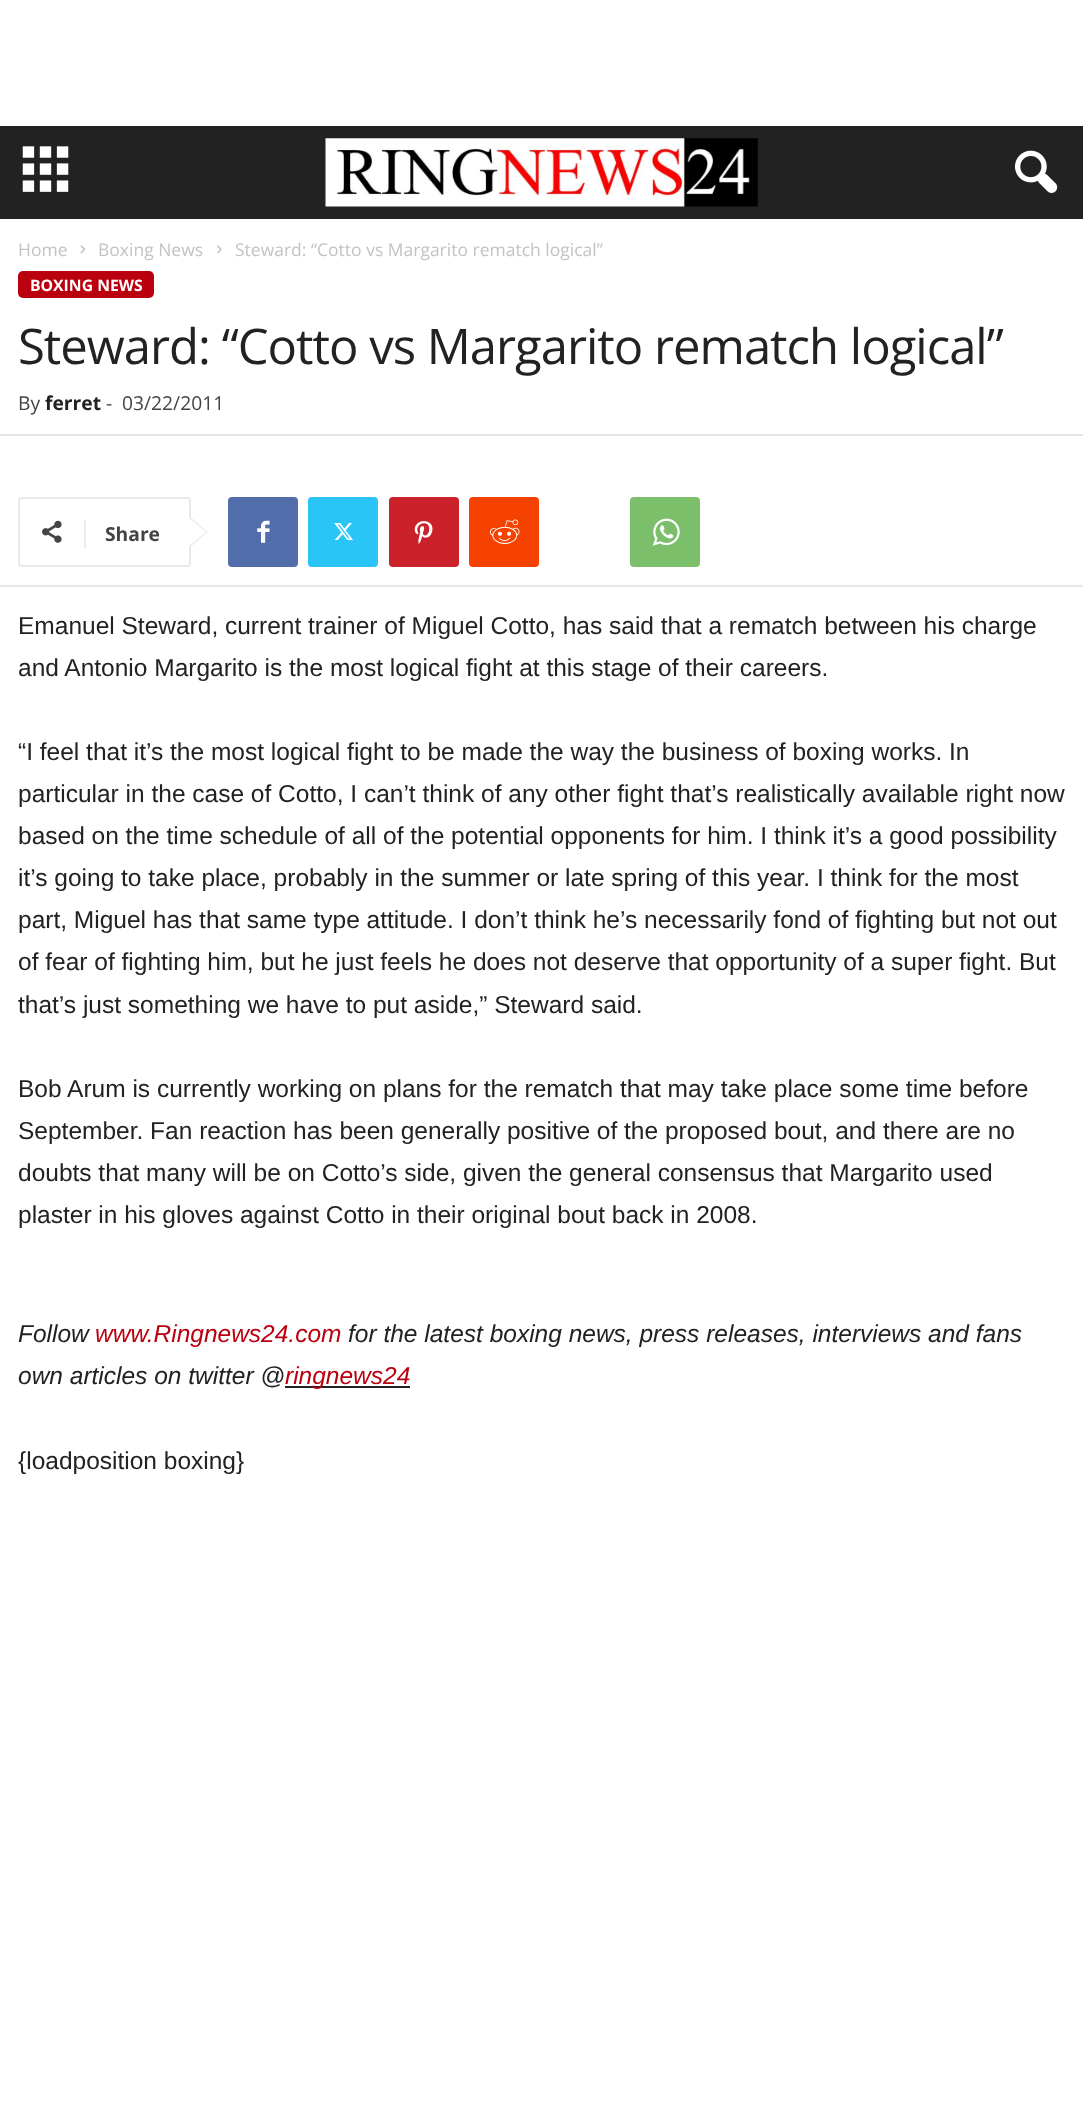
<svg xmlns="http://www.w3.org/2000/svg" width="1083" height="2121">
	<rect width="100%" height="100%" fill="#FFFFFF" />
	<rect x="0" y="126" width="1083" height="93" fill="#222222" />
	<image x="22" y="146" width="47" height="46" href="assets/img1.png" />
	<image x="325" y="138" width="433" height="69" href="assets/img2.png" />
	<image x="1015" y="150" width="43" height="43" href="assets/img3.png" />
	<text x="18" y="256" font-family="Open Sans" font-size="17.5" fill="#C3C3C3">Home</text>
	<image x="80" y="245" width="6" height="9" href="assets/img4.png" />
	<text x="98" y="256" font-family="Open Sans" font-size="17.5" fill="#C3C3C3">Boxing News</text>
	<image x="217" y="245" width="5" height="9" href="assets/img5.png" />
	<text x="235" y="256" font-family="Open Sans" font-size="17.5" fill="#C3C3C3">Steward: “Cotto vs Margarito rematch logical”</text>
	<rect x="18" y="271" width="136" height="27" rx="5" fill="#BA000F" />
	<text x="30" y="291" font-family="Open Sans" font-size="15.75" font-weight="700" fill="#FFFFFF">BOXING NEWS</text>
	<text x="18" y="364" font-family="Open Sans" font-size="49" letter-spacing="-1" fill="#222222">Steward: “Cotto vs Margarito rematch logical”</text>
	<text x="18" y="410" font-family="Open Sans" font-size="19.25" fill="#444444">By</text>
	<text x="45" y="410" font-family="Open Sans" font-size="19.25" font-weight="700" fill="#222222">ferret</text>
	<g font-family="Open Sans" font-size="19.25" fill="#444444">
		<text x="106" y="410">-</text>
		<text x="122" y="410">03/22/2011</text>
	</g>
	<rect x="0" y="434" width="1083" height="2" fill="#E6E6E6" />
	<rect x="19" y="498" width="171" height="68" rx="3" fill="none" stroke="#E9E9E9" stroke-width="2" />
	<path d="M189 548V516L208 532Z" fill="#E9E9E9" />
	<image x="42" y="520" width="20" height="23" href="assets/img6.png" />
	<rect x="84" y="520" width="2" height="28" fill="#EBEBEB" />
	<text x="105" y="541" font-family="Open Sans" font-size="19.25" font-weight="700" fill="#444444">Share</text>
	<path d="M189 546V518L206.5 532Z" fill="#FFFFFF" />
	<rect x="228" y="497" width="70" height="70" rx="4" fill="#516EAB" />
	<image x="257" y="520" width="13" height="23" href="assets/img7.png" />
	<rect x="308" y="497" width="70" height="70" rx="4" fill="#29C5F6" />
	<image x="334" y="523" width="19" height="18" href="assets/img8.png" />
	<rect x="389" y="497" width="70" height="70" rx="4" fill="#CA212A" />
	<image x="414" y="521" width="19" height="23" href="assets/img9.png" />
	<rect x="469" y="497" width="70" height="70" rx="4" fill="#F54200" />
	<image x="490" y="519" width="30" height="25" href="assets/img10.png" />
	<rect x="630" y="497" width="70" height="70" rx="4" fill="#7BBF6A" />
	<image x="652" y="518" width="28" height="28" href="assets/img11.png" />
	<rect x="0" y="585" width="1083" height="2" fill="#E6E6E6" />
	<g font-family="Liberation Sans" font-size="24.5" fill="#222222">
		<text x="18" y="634">Emanuel Steward, current trainer of Miguel Cotto, has said that a rematch between his charge</text>
		<text x="18" y="676">and Antonio Margarito is the most logical fight at this stage of their careers.</text>
		<text x="18" y="760">“I feel that it’s the most logical fight to be made the way the business of boxing works. In</text>
		<text x="18" y="802">particular in the case of Cotto, I can’t think of any other fight that’s realistically available right now</text>
		<text x="18" y="844">based on the time schedule of all of the potential opponents for him. I think it’s a good possibility</text>
		<text x="18" y="886">it’s going to take place, probably in the summer or late spring of this year. I think for the most</text>
		<text x="18" y="928">part, Miguel has that same type attitude. I don’t think he’s necessarily fond of fighting but not out</text>
		<text x="18" y="970">of fear of fighting him, but he just feels he does not deserve that opportunity of a super fight. But</text>
		<text x="18" y="1013">that’s just something we have to put aside,” Steward said.</text>
		<text x="18" y="1097">Bob Arum is currently working on plans for the rematch that may take place some time before</text>
		<text x="18" y="1139">September. Fan reaction has been generally positive of the proposed bout, and there are no</text>
		<text x="18" y="1181">doubts that many will be on Cotto’s side, given the general consensus that Margarito used</text>
		<text x="18" y="1223">plaster in his gloves against Cotto in their original bout back in 2008.</text>
	</g>
	<text x="18" y="1342" font-family="Liberation Sans" font-size="24.5" font-style="italic" fill="#222222">Follow</text>
	<text x="95" y="1342" font-family="Liberation Sans" font-size="24.5" font-style="italic" fill="#BA000F">www.Ringnews24.com</text>
	<g font-family="Liberation Sans" font-size="24.5" font-style="italic" fill="#222222">
		<text x="348" y="1342">for the latest boxing news, press releases, interviews and fans</text>
		<text x="18" y="1384">own articles on twitter @</text>
	</g>
	<rect x="285" y="1386" width="125" height="2" fill="#222222" />
	<text x="285" y="1384" font-family="Liberation Sans" font-size="24.5" font-style="italic" fill="#BA000F">ringnews24</text>
	<text x="18" y="1469" font-family="Liberation Sans" font-size="24.5" fill="#222222">{loadposition boxing}</text>
</svg>
